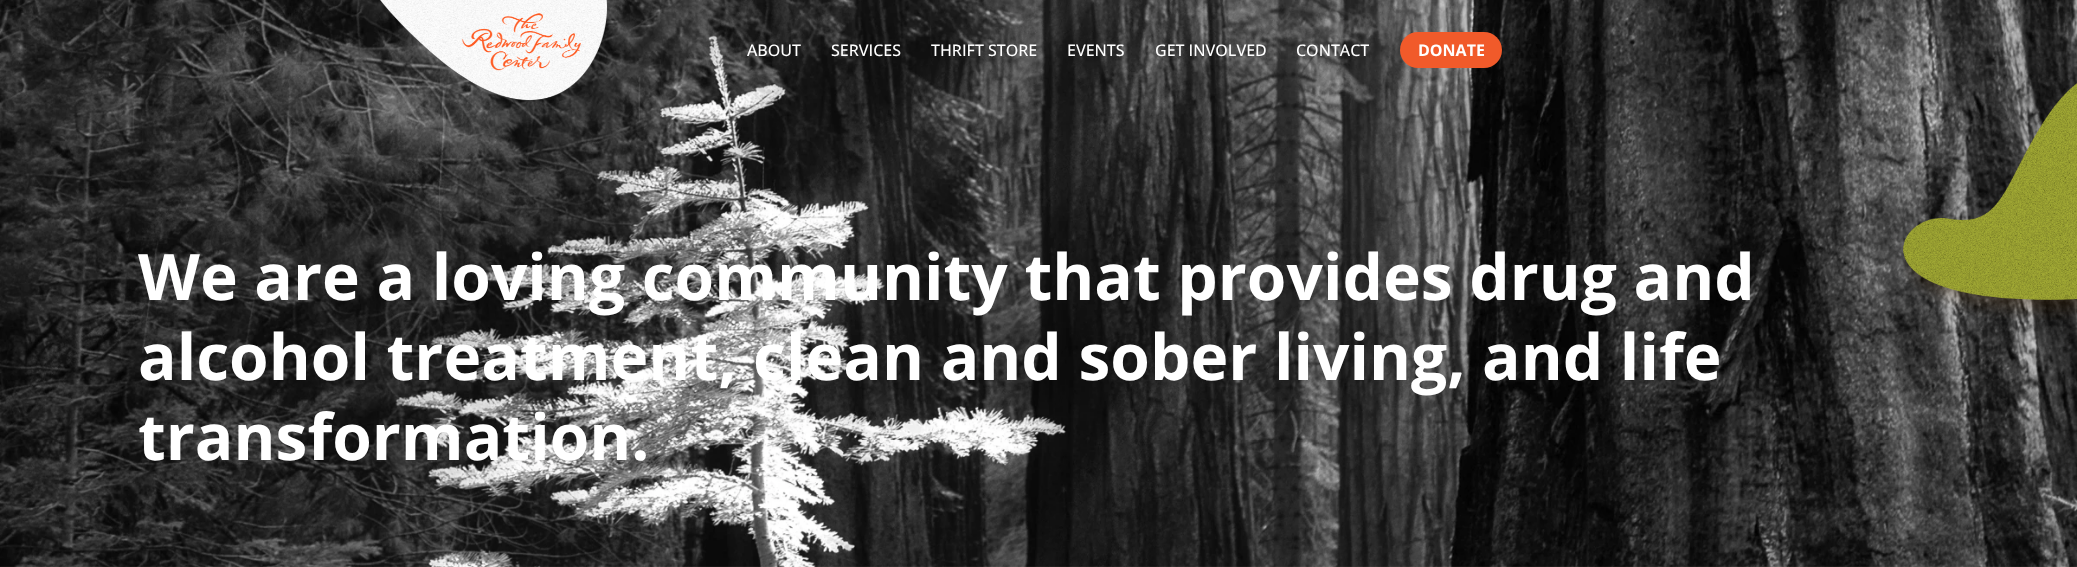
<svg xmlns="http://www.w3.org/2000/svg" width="2077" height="567">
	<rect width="100%" height="100%" fill="#FFFFFF" />
	<image x="0" y="566" width="2077" height="1" href="assets/img1.png" />
	<image x="0" y="0" width="2077" height="567" href="assets/img3.png" />
	<image x="380" y="0" width="228" height="100" href="assets/img2.png" />
	<g font-family="Open Sans" font-size="16" font-weight="500" fill="#FFFFFF">
		<text x="747" y="56">ABOUT</text>
		<text x="831" y="56">SERVICES</text>
		<text x="931" y="56">THRIFT STORE</text>
		<text x="1067" y="56">EVENTS</text>
		<text x="1155" y="56">GET INVOLVED</text>
		<text x="1296" y="56">CONTACT</text>
	</g>
	<rect x="1400" y="32" width="102" height="36" rx="18" fill="#F15A2A" />
	<text x="1418" y="56" font-family="Open Sans" font-size="16" font-weight="700" fill="#FFFFFF">DONATE</text>
	<image x="1903" y="83" width="174" height="237" href="assets/img4.png" />
	<g font-family="Open Sans" font-size="64" font-weight="700" fill="#FFFFFF">
		<text x="138" y="300">We are a loving community that provides drug and</text>
		<text x="138" y="380">alcohol treatment, clean and sober living, and life</text>
		<text x="138" y="460">transformation.</text>
	</g>
</svg>
